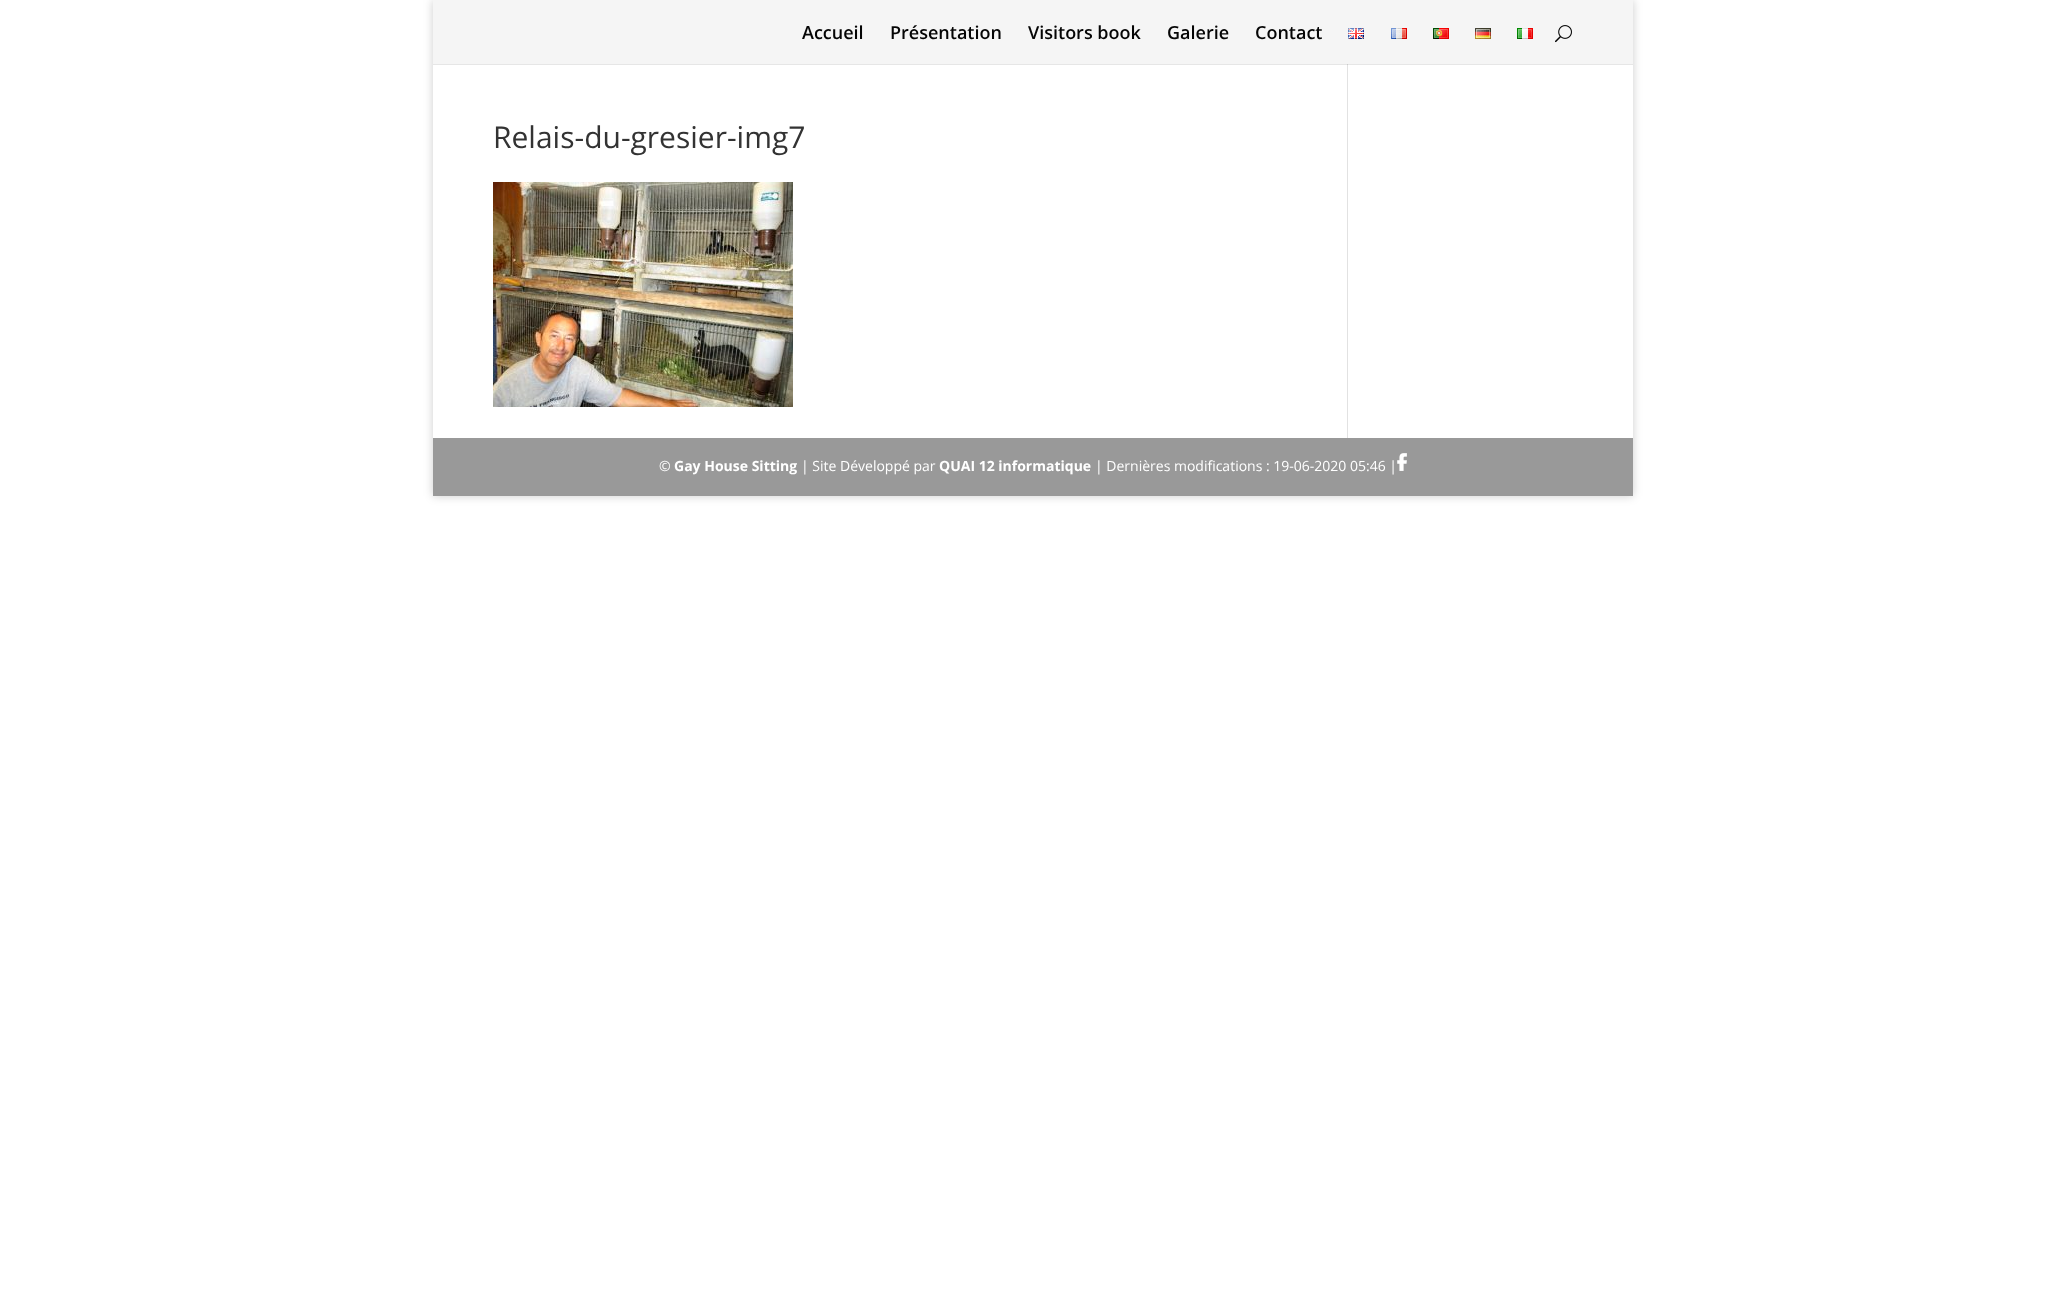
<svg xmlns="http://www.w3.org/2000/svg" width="2066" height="1313">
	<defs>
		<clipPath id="clip1"><path d="M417 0H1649V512H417ZM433 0H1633V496H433Z" clip-rule="evenodd" /></clipPath>
	</defs>
	<rect width="100%" height="100%" fill="#FFFFFF" />
	<rect x="433" y="64" width="1200" height="1" fill="#E6E6E6" />
	<g clip-path="url(#clip1)">
		<rect x="433" y="0" width="1200" height="496" fill="#000000" fill-opacity="0.2" filter="blur(5px)" />
	</g>
	<rect x="433" y="0" width="1200" height="64" fill="#F5F5F5" />
	<g font-family="Open Sans" font-size="18" font-weight="600" fill="#050505">
		<text x="802" y="39">Accueil</text>
		<text x="890" y="39">Présentation</text>
		<text x="1028" y="39">Visitors book</text>
		<text x="1167" y="39">Galerie</text>
		<text x="1255" y="39">Contact</text>
	</g>
	<image x="1348" y="28" width="16" height="11" href="assets/img1.png" />
	<image x="1391" y="28" width="16" height="11" href="assets/img2.png" />
	<image x="1433" y="28" width="16" height="11" href="assets/img3.png" />
	<image x="1475" y="28" width="16" height="11" href="assets/img4.png" />
	<image x="1517" y="28" width="16" height="11" href="assets/img5.png" />
	<image x="1555" y="25" width="17" height="18" href="assets/img6.png" />
	<text x="493" y="148" font-family="Open Sans" font-size="30" fill="#333333">Relais-du-gresier-img7</text>
	<image x="493" y="182" width="300" height="225" href="assets/img7.png" />
	<rect x="1347" y="64" width="1" height="374" fill="#E2E2E2" />
	<rect x="1347" y="64" width="1" height="1" fill="#CBCBCB" />
	<rect x="433" y="438" width="1200" height="58" fill="#999999" />
	<text x="659" y="471" font-family="Open Sans" font-size="14" fill="#FFFFFF">©</text>
	<text x="674" y="471" font-family="Open Sans" font-size="14" font-weight="700" fill="#FFFFFF">Gay House Sitting</text>
	<text x="801" y="471" font-family="Open Sans" font-size="14" fill="#FFFFFF">| Site Développé par</text>
	<text x="939" y="471" font-family="Open Sans" font-size="14" font-weight="700" fill="#FFFFFF">QUAI 12 informatique</text>
	<text x="1095" y="471" font-family="Open Sans" font-size="14" fill="#FFFFFF">| Dernières modifications : 19-06-2020 05:46 |</text>
	<image x="1397" y="453" width="10" height="18" href="assets/img8.png" />
</svg>
